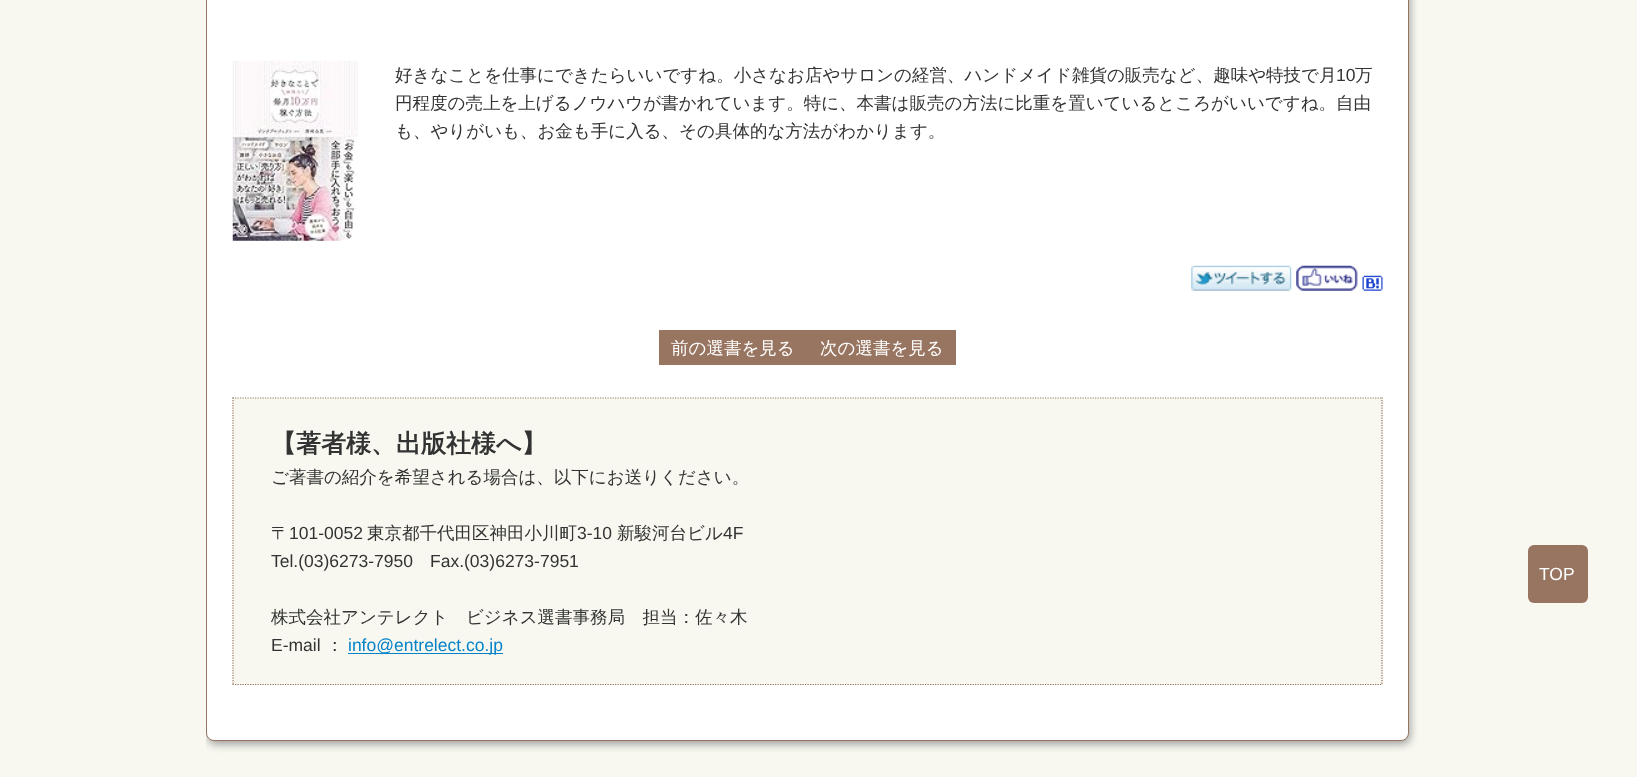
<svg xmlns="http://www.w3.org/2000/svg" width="1637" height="777">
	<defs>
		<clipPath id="clip1"><rect x="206" y="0" width="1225" height="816" /></clipPath>
	</defs>
	<rect width="100%" height="100%" fill="#F8F8F0" />
	<g clip-path="url(#clip1)">
		<rect x="208" y="-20" width="1202" height="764" rx="8" fill="#999999" filter="blur(4px)" />
	</g>
	<rect x="206.5" y="-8.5" width="1202" height="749" rx="7.5" fill="#FFFFFF" stroke="#987561" />
	<image x="232" y="60" width="126" height="181" href="assets/img1.png" />
	<text x="395" y="81" font-family="WenQuanYi Zen Hei" font-size="17.5" font-weight="500" fill="#333333">好きなことを仕事にできたらいいですね。小さなお店やサロンの経営、ハンドメイド雑貨の販売など、趣味や特技で月</text>
	<text x="1336" y="81" font-family="Liberation Sans" font-size="17.5" fill="#333333">10</text>
	<g font-family="WenQuanYi Zen Hei" font-size="17.5" font-weight="500" fill="#333333">
		<text x="1355" y="81">万</text>
		<text x="395" y="109">円程度の売上を上げるノウハウが書かれています。特に、本書は販売の方法に比重を置いているところがいいですね。自由</text>
		<text x="395" y="137">も、やりがいも、お金も手に入る、その具体的な方法がわかります。</text>
	</g>
	<image x="1191" y="265" width="101" height="26" href="assets/img2.png" />
	<image x="1296" y="265" width="62" height="26" href="assets/img3.png" />
	<image x="1362" y="275" width="21" height="16" href="assets/img4.png" />
	<rect x="659" y="330" width="297" height="35" fill="#987561" />
	<g font-family="WenQuanYi Zen Hei" font-size="17.5" font-weight="500" fill="#FFFFFF">
		<text x="671" y="354">前の選書を見る</text>
		<text x="820" y="354">次の選書を見る</text>
	</g>
	<rect x="233" y="398" width="1150" height="287" fill="#F8F8F0" />
	<path d="M232.5 398H1382.5" fill="none" stroke="#987561" stroke-width="1.2" stroke-dasharray="1.25 1.25" />
	<path d="M1382 397.5V685" fill="none" stroke="#987561" stroke-width="1.2" stroke-dasharray="1.25 1.25" />
	<path d="M232.5 684.5H1382.5" fill="none" stroke="#987561" stroke-width="1.2" stroke-dasharray="1.25 1.25" />
	<path d="M233 397.5V685" fill="none" stroke="#987561" stroke-width="1.2" stroke-dasharray="1.25 1.25" />
	<text x="271" y="452" font-family="WenQuanYi Zen Hei" font-size="25" font-weight="700" fill="#333333">【著者様、出版社様へ】</text>
	<g font-family="WenQuanYi Zen Hei" font-size="17.5" font-weight="500" fill="#333333">
		<text x="271" y="483">ご著書の紹介を希望される場合は、以下にお送りください。</text>
		<text x="271" y="539">〒</text>
	</g>
	<text x="289" y="539" font-family="Liberation Sans" font-size="17.5" fill="#333333">101-0052</text>
	<text x="367" y="539" font-family="WenQuanYi Zen Hei" font-size="17.5" font-weight="500" fill="#333333">東京都千代田区神田小川町</text>
	<text x="577" y="539" font-family="Liberation Sans" font-size="17.5" fill="#333333">3-10</text>
	<text x="617" y="539" font-family="WenQuanYi Zen Hei" font-size="17.5" font-weight="500" fill="#333333">新駿河台ビル</text>
	<g font-family="Liberation Sans" font-size="17.5" fill="#333333">
		<text x="723" y="539">4F</text>
		<text x="271" y="567">Tel.(03)6273-7950</text>
		<text x="430" y="567">Fax.(03)6273-7951</text>
	</g>
	<text x="271" y="623" font-family="WenQuanYi Zen Hei" font-size="17.5" font-weight="500" fill="#333333">株式会社アンテレクト　ビジネス選書事務局　担当：佐々木</text>
	<text x="271" y="651" font-family="Liberation Sans" font-size="17.5" fill="#333333">E-mail</text>
	<text x="326" y="651" font-family="WenQuanYi Zen Hei" font-size="17.5" font-weight="500" fill="#333333">：</text>
	<rect x="348" y="653" width="155" height="1" fill="#0583C8" />
	<text x="348" y="651" font-family="Liberation Sans" font-size="17.5" fill="#0583C8">info@entrelect.co.jp</text>
	<rect x="1528" y="545" width="60" height="58" rx="6" fill="#987561" />
	<text x="1539" y="580" font-family="Liberation Sans" font-size="17.5" fill="#FFFFFF">TOP</text>
</svg>
